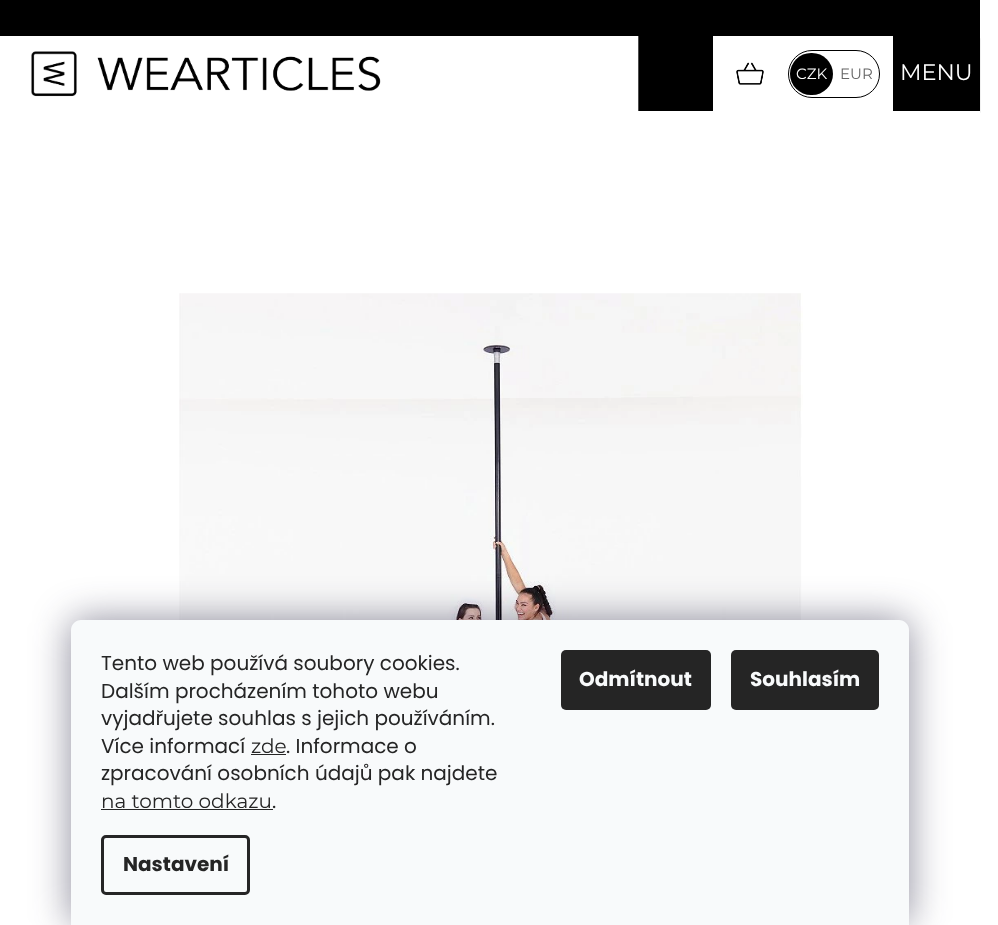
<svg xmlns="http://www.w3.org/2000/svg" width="998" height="925">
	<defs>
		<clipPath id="clip1"><rect x="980" y="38" width="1" height="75" /></clipPath>
	</defs>
	<rect width="100%" height="100%" fill="#FFFFFF" />
	<rect x="0" y="0" width="980" height="36" fill="#000000" />
	<g clip-path="url(#clip1)">
		<rect x="0" y="38" width="980" height="75" fill="#000000" fill-opacity="0.16" filter="blur(1px)" />
	</g>
	<image x="31" y="51" width="350" height="46" href="assets/img1.png" />
	<rect x="639" y="36" width="74" height="75" fill="#000000" />
	<rect x="638" y="36" width="1" height="75" fill="#4D4D4D" />
	<image x="736" y="62" width="28" height="23" href="assets/img2.png" />
	<rect x="788.5" y="50.5" width="91" height="47" rx="23.5" fill="none" stroke="#000000" />
	<rect x="790" y="53" width="43" height="42" rx="21" fill="#000000" />
	<text x="796" y="79" font-family="Montserrat" font-size="15" fill="#FFFFFF">CZK</text>
	<text x="840" y="79" font-family="Montserrat" font-size="15" fill="#666666">EUR</text>
	<rect x="893" y="36" width="87" height="75" fill="#000000" />
	<text x="900" y="80" font-family="Montserrat" font-size="22.5" fill="#FFFFFF">MENU</text>
	<rect x="0" y="111" width="980" height="3" fill="#FFFFFF" />
	<image x="179" y="293" width="624" height="327" href="assets/img3.png" />
	<rect x="71" y="620" width="838" height="305" rx="10" fill="#1B1939" fill-opacity="0.5" filter="blur(19px)" />
	<path d="M81 620H899C904.5 620 909 624.5 909 630V925H71V630C71 624.5 75.5 620 81 620Z" fill="#F8FAFB" />
	<g font-family="Poppins" font-size="20" fill="#252525">
		<text x="101" y="670">Tento web používá soubory cookies.</text>
		<text x="101" y="698">Dalším procházením tohoto webu</text>
		<text x="101" y="725">vyjadřujete souhlas s jejich používáním.</text>
		<text x="101" y="753">Více informací</text>
	</g>
	<text x="251" y="753" font-family="Montserrat" font-size="20" fill="#252525">zde</text>
	<rect x="251" y="754" width="35" height="1" fill="#252525" />
	<g font-family="Poppins" font-size="20" fill="#252525">
		<text x="286" y="753">. Informace o</text>
		<text x="101" y="780">zpracování osobních údajů pak najdete</text>
	</g>
	<text x="101" y="808" font-family="Montserrat" font-size="20" fill="#252525">na tomto odkazu</text>
	<rect x="101" y="809" width="172" height="1" fill="#252525" />
	<text x="272" y="808" font-family="Poppins" font-size="20" fill="#252525">.</text>
	<rect x="102.5" y="836.5" width="146" height="57" rx="3.5" fill="none" stroke="#252525" stroke-width="3" />
	<text x="123" y="871" font-family="Poppins" font-size="20" font-weight="700" fill="#252525">Nastavení</text>
	<rect x="561" y="650" width="150" height="60" rx="5" fill="#252525" />
	<text x="579" y="686" font-family="Poppins" font-size="20" font-weight="700" fill="#F8FAFB">Odmítnout</text>
	<rect x="731" y="650" width="148" height="60" rx="5" fill="#252525" />
	<text x="750" y="686" font-family="Poppins" font-size="20" font-weight="700" fill="#F8FAFB">Souhlasím</text>
</svg>
